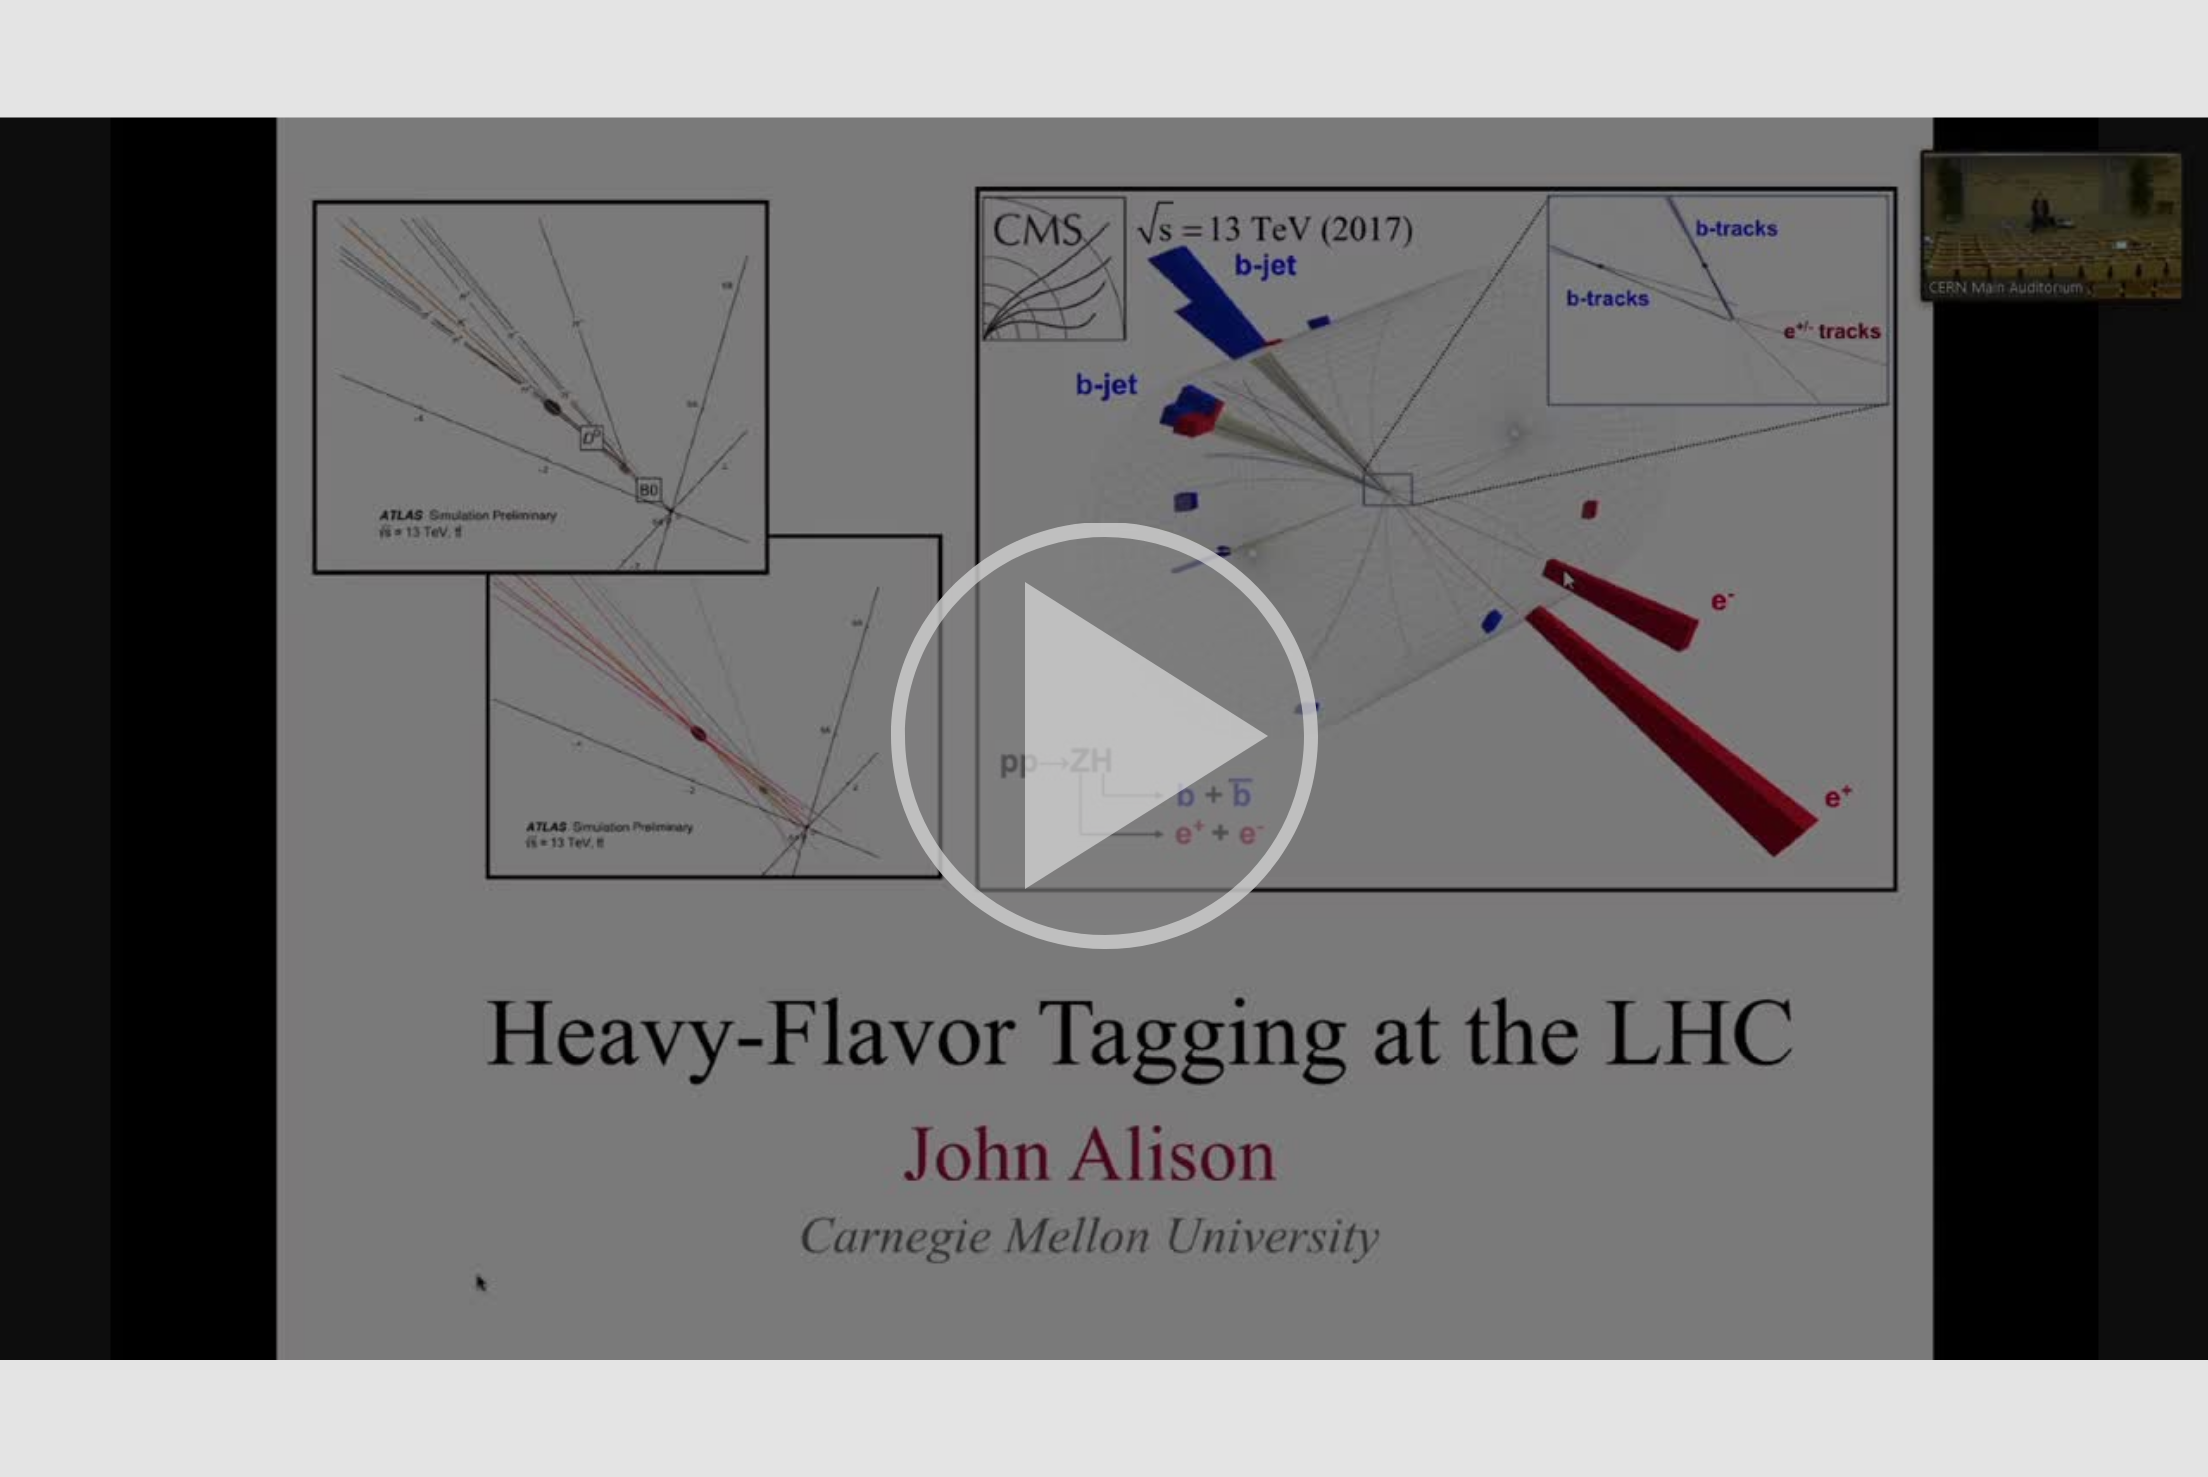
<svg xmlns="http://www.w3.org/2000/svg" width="2208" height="1477">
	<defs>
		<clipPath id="clip1"><rect x="891" y="523" width="427" height="427" /></clipPath>
	</defs>
	<rect width="100%" height="100%" fill="#E4E4E4" />
	<image x="0" y="117" width="2208" height="1243" href="assets/img1.png" />
	<g clip-path="url(#clip1)">
		<circle cx="1104.5" cy="736" r="213.5" fill="#808080" fill-opacity="0.6" />
		<path d="M1105 522C1222 522 1318 618 1318 736C1318 854 1222 949 1105 949C987 949 891 854 891 736C891 618 987 522 1105 522ZM1105 537C1215 537 1304 626 1304 736C1304 846 1215 935 1105 935C995 935 905 846 905 736C905 626 995 537 1105 537Z" fill="#EBEBEB" fill-opacity="0.6" fill-rule="evenodd" />
	</g>
	<path d="M1268 736L1025 889V582Z" fill="#EBEBEB" fill-opacity="0.6" fill-rule="evenodd" />
</svg>
